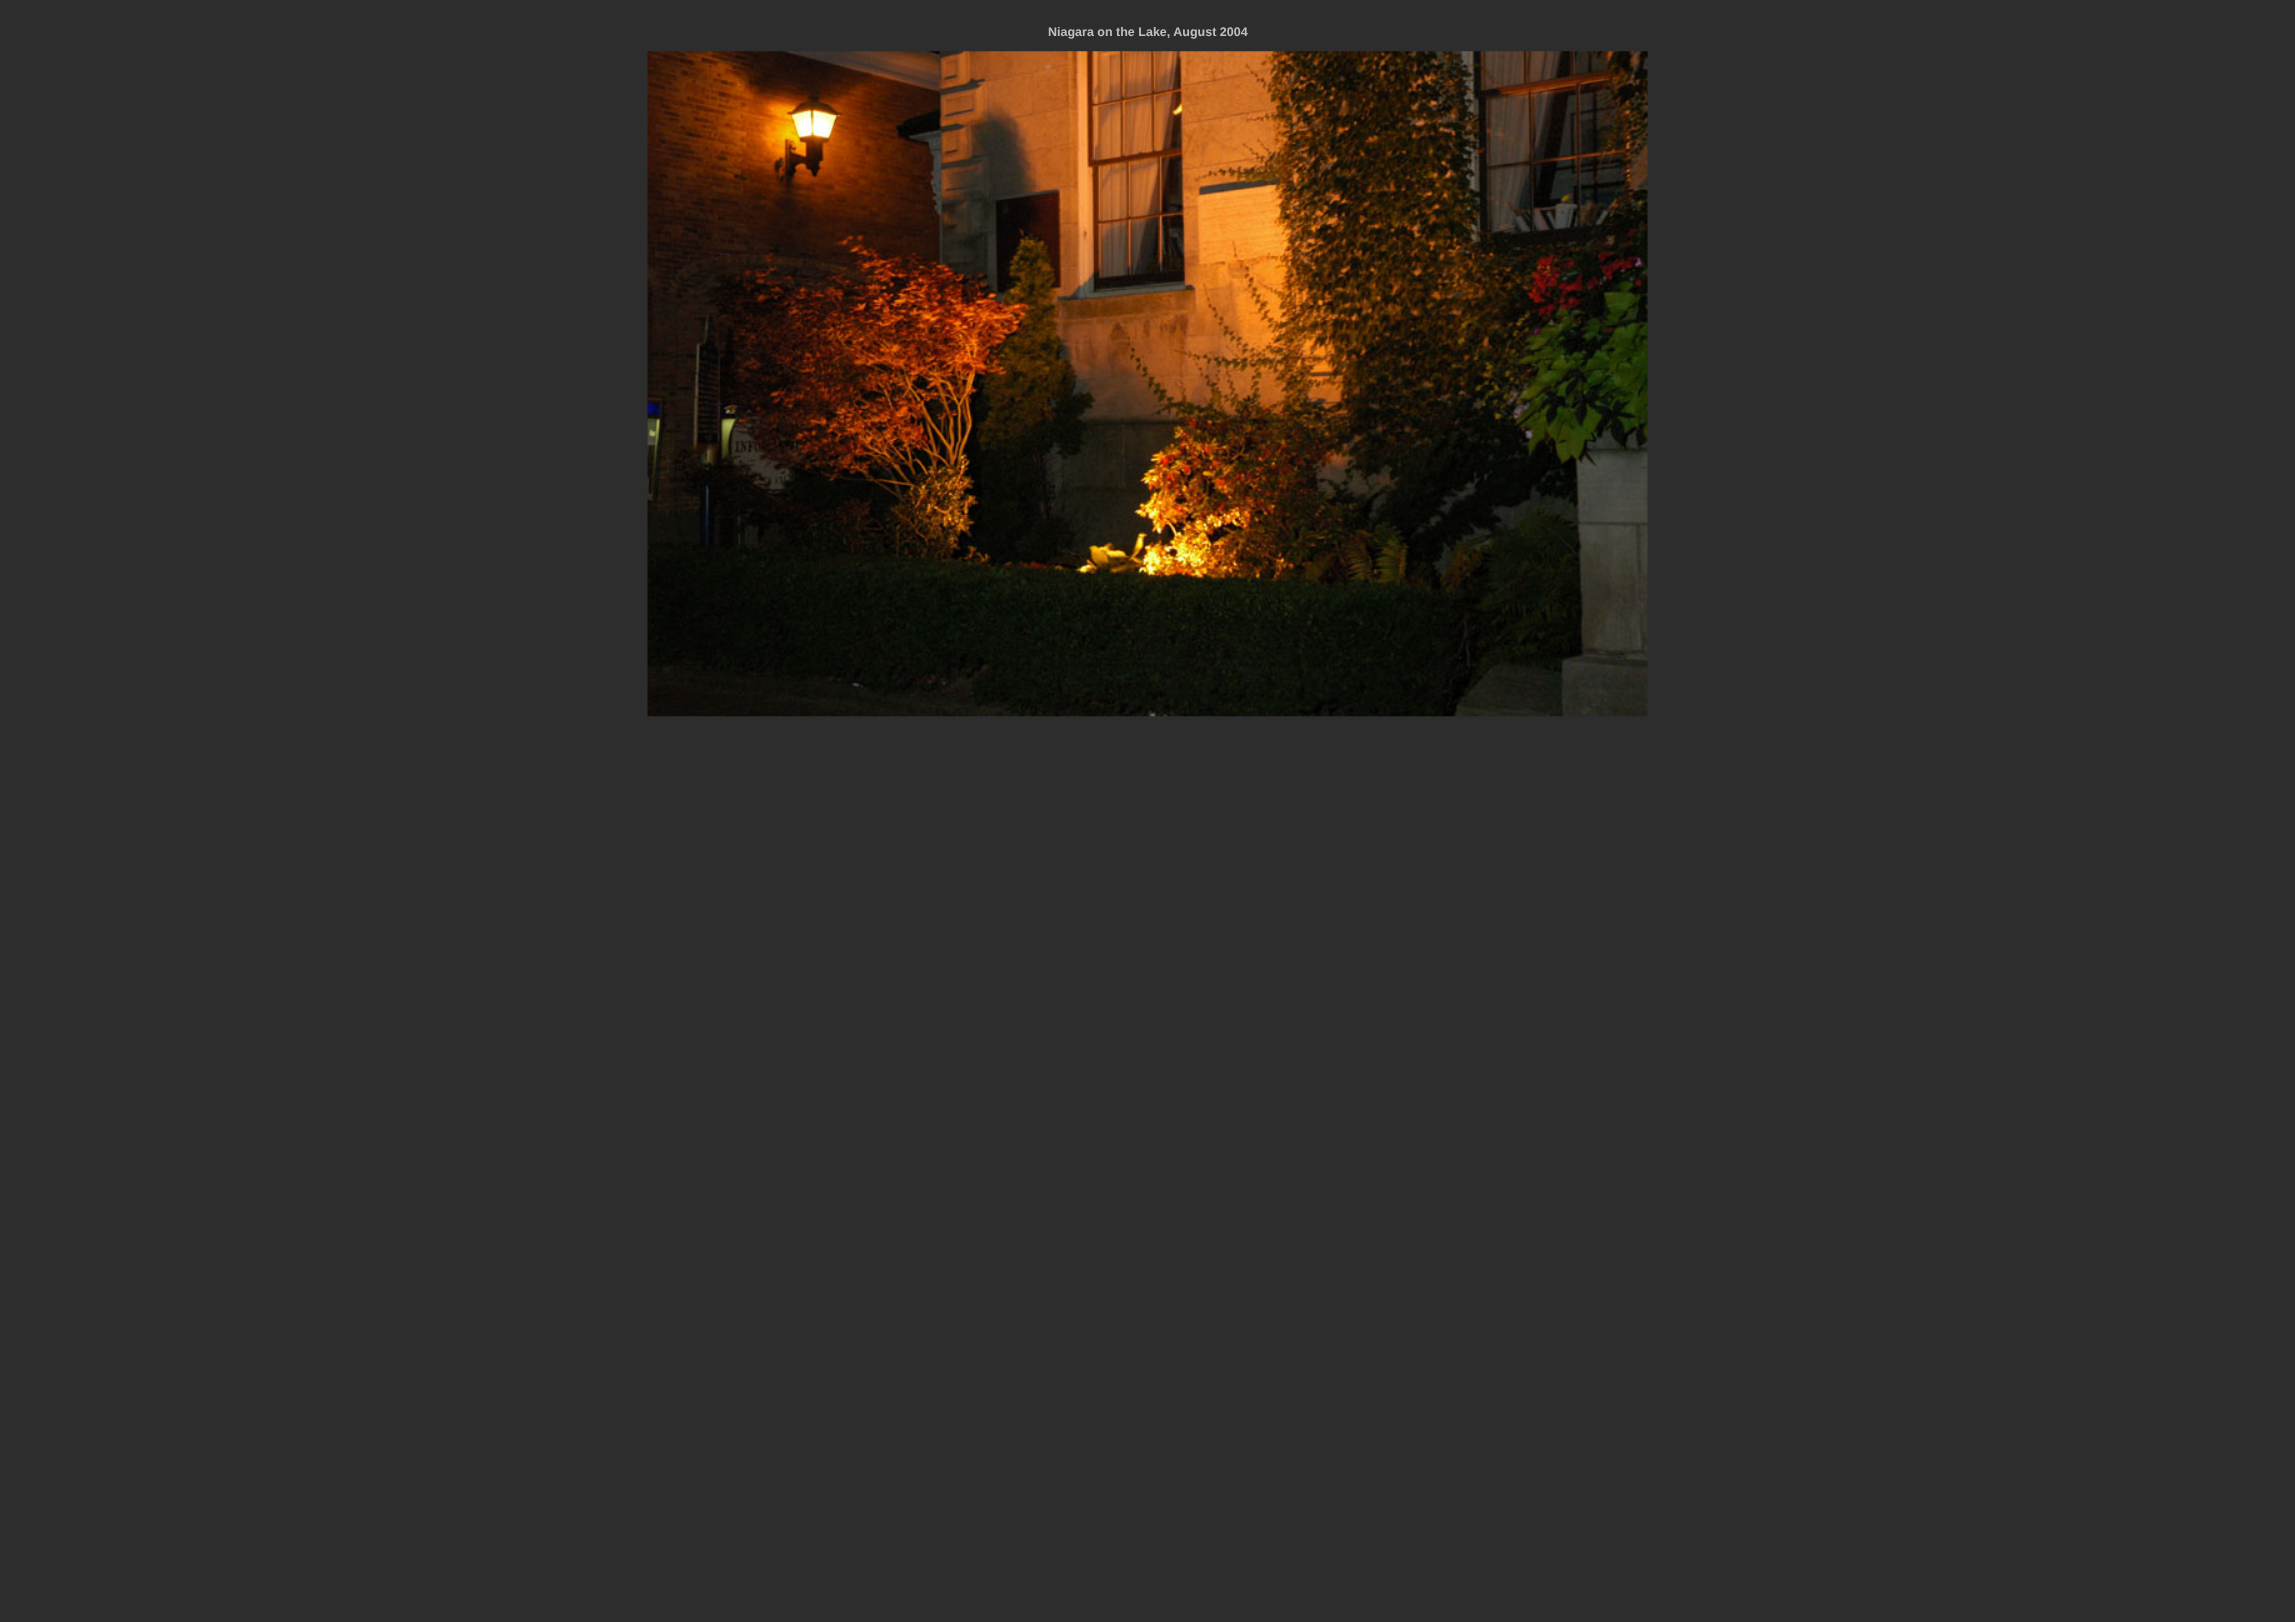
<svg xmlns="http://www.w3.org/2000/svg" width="2295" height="1622">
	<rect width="100%" height="100%" fill="#2D2D2D" />
	<text x="1048" y="36" font-family="Liberation Sans" font-size="12.5" font-weight="700" fill="#C0C0C0">Niagara on the Lake, August 2004</text>
	<image x="647" y="51" width="1001" height="666" href="assets/img1.png" />
</svg>
